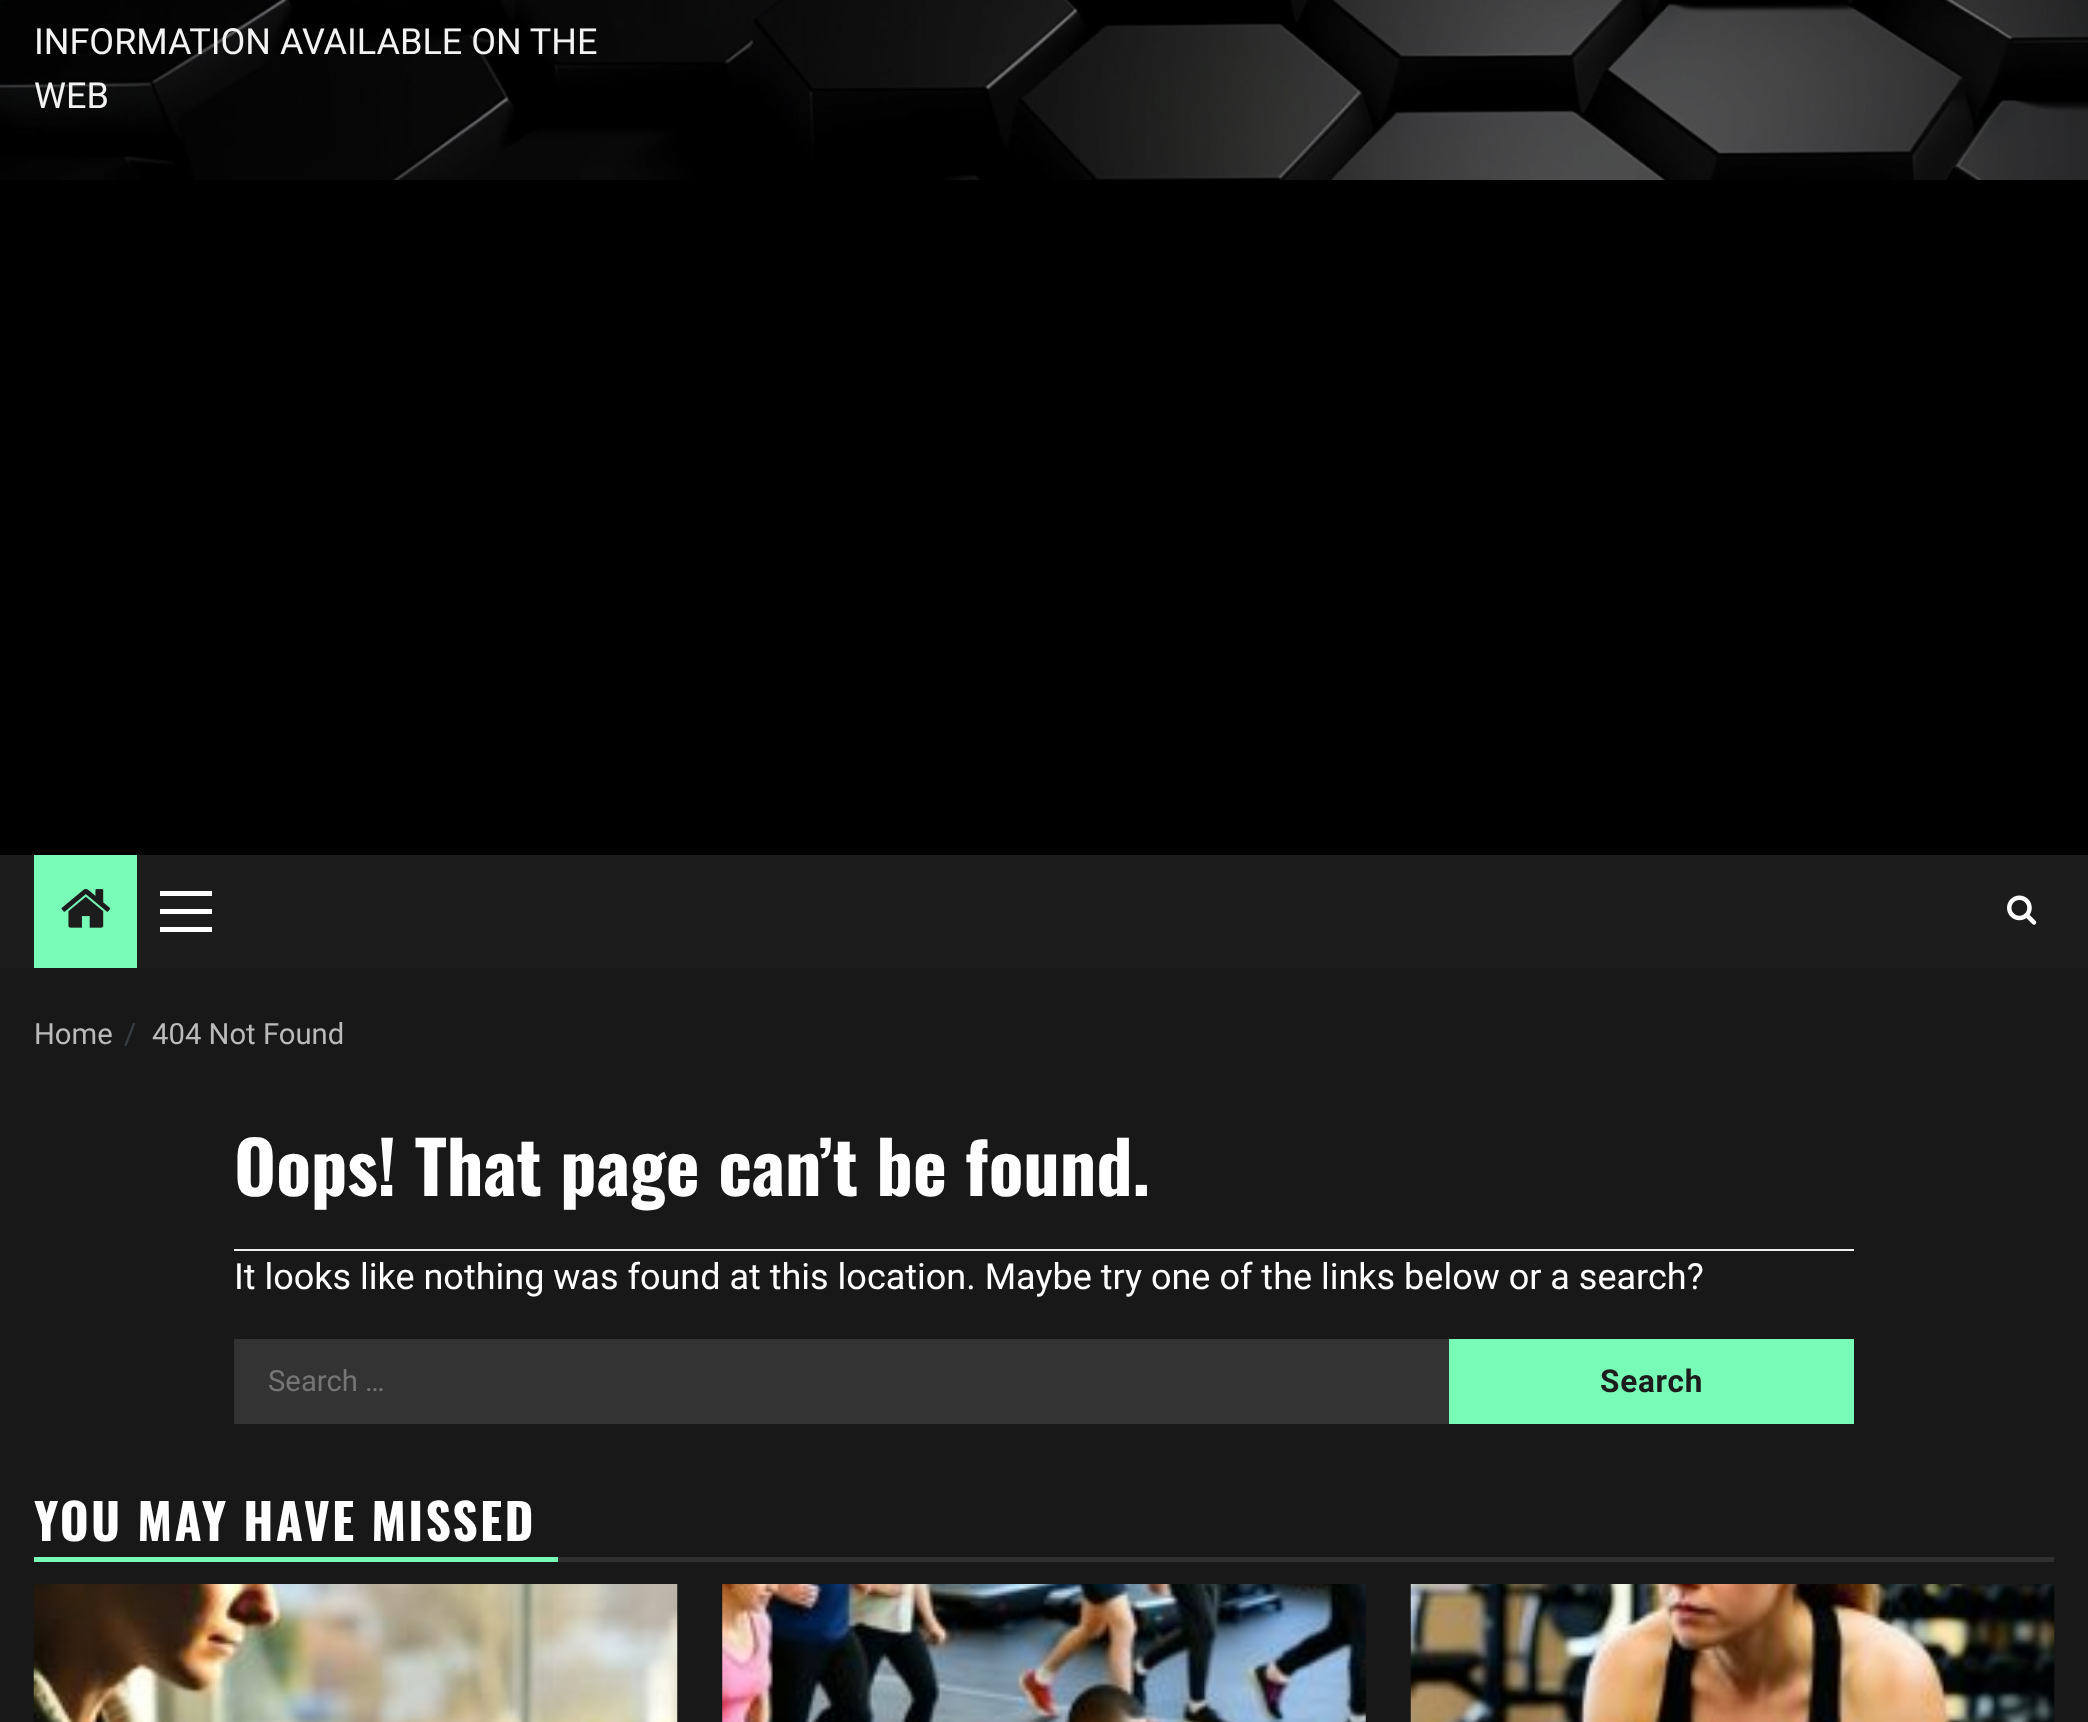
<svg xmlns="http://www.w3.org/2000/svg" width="2088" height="1722">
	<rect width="100%" height="100%" fill="#181818" />
	<rect x="0" y="180" width="2088" height="675" fill="#000000" />
	<image x="0" y="0" width="2088" height="180" href="assets/img1.png" />
	<g font-family="Roboto" font-size="36" fill="#F3F3F3">
		<text x="34" y="54">INFORMATION AVAILABLE ON THE</text>
		<text x="34" y="108">WEB</text>
	</g>
	<rect x="0" y="855" width="2088" height="113" fill="#1C1C1C" />
	<rect x="34" y="855" width="103" height="113" fill="#78FBB7" />
	<image x="61" y="889" width="50" height="39" href="assets/img2.png" />
	<rect x="160" y="909" width="52" height="5" fill="#FFFFFF" />
	<rect x="160" y="891" width="52" height="5" fill="#FFFFFF" />
	<rect x="160" y="927" width="52" height="5" fill="#FFFFFF" />
	<image x="2007" y="895" width="30" height="30" href="assets/img3.png" />
	<text x="34" y="1044" font-family="Roboto" font-size="29.25" fill="#BABABA">Home</text>
	<text x="124" y="1044" font-family="Roboto" font-size="29.25" fill="#393E46">/</text>
	<text x="152" y="1044" font-family="Roboto" font-size="29.25" fill="#BABABA">404 Not Found</text>
	<rect x="234" y="1249" width="1620" height="2" fill="#EEEEEE" />
	<text x="234" y="1196" font-family="Oswald" font-size="72" font-weight="700" fill="#FFFFFF">Oops! That page can’t be found.</text>
	<text x="234" y="1289" font-family="Roboto" font-size="36" fill="#FFFFFF">It looks like nothing was found at this location. Maybe try one of the links below or a search?</text>
	<rect x="234" y="1339" width="1215" height="85" fill="#333333" />
	<text x="268" y="1391" font-family="Roboto" font-size="29.25" fill="#757575">Search …</text>
	<rect x="1449" y="1339" width="405" height="85" fill="#78FBB7" />
	<text x="1600" y="1392" font-family="Roboto" font-size="31.5" font-weight="700" letter-spacing="0.75" fill="#1C1C1C">Search</text>
	<rect x="34" y="1557" width="524" height="5" fill="#78FBB7" />
	<text x="34" y="1541" font-family="Oswald" font-size="49.5" font-weight="700" letter-spacing="2.25" fill="#FFFFFF">YOU MAY HAVE MISSED</text>
	<rect x="558" y="1557" width="1496" height="5" fill="#2F2F2F" />
	<image x="33" y="1584" width="645" height="138" href="assets/img4.png" />
	<image x="722" y="1584" width="644" height="138" href="assets/img5.png" />
	<image x="1410" y="1584" width="645" height="138" href="assets/img6.png" />
</svg>
